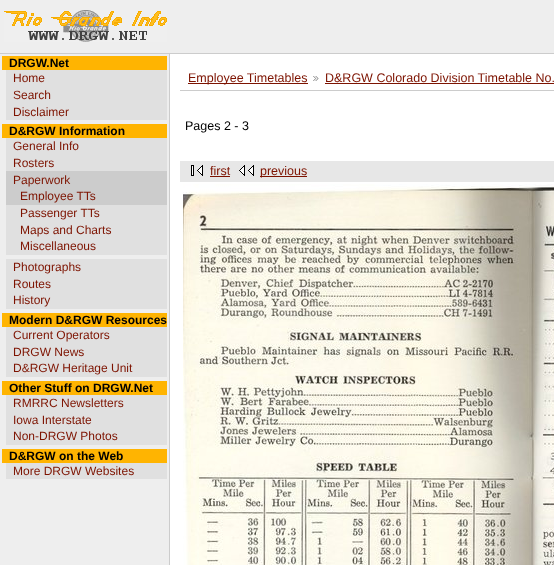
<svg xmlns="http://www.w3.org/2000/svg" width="554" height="565">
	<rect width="100%" height="100%" fill="#EEEEEE" />
	<rect x="0" y="53" width="554" height="1" fill="#CCCCCC" />
	<image x="4" y="10" width="163" height="32" href="assets/img1.png" />
	<rect x="169" y="54" width="1" height="511" fill="#CCCCCC" />
	<rect x="2" y="56" width="165" height="14" fill="#FFB401" />
	<text x="9" y="67" font-family="Liberation Sans" font-size="12" font-weight="700" fill="#000000">DRGW.Net</text>
	<rect x="6" y="70" width="161" height="50" fill="#E0E0E0" />
	<g font-family="Liberation Sans" font-size="12" fill="#7D1301">
		<text x="13" y="82">Home</text>
		<text x="13" y="99">Search</text>
		<text x="13" y="116">Disclaimer</text>
	</g>
	<rect x="2" y="124" width="165" height="14" fill="#FFB401" />
	<text x="9" y="135" font-family="Liberation Sans" font-size="12" font-weight="700" fill="#000000">D&amp;RGW Information</text>
	<rect x="6" y="138" width="161" height="33" fill="#E0E0E0" />
	<g font-family="Liberation Sans" font-size="12" fill="#7D1301">
		<text x="13" y="150">General Info</text>
		<text x="13" y="167">Rosters</text>
	</g>
	<rect x="6" y="171" width="161" height="34" fill="#CCCCCC" />
	<g font-family="Liberation Sans" font-size="12" fill="#7D1301">
		<text x="13" y="184">Paperwork</text>
		<text x="20" y="200">Employee TTs</text>
	</g>
	<rect x="6" y="205" width="161" height="50" fill="#E0E0E0" />
	<g font-family="Liberation Sans" font-size="12" fill="#7D1301">
		<text x="20" y="217">Passenger TTs</text>
		<text x="20" y="234">Maps and Charts</text>
		<text x="20" y="250">Miscellaneous</text>
	</g>
	<rect x="6" y="259" width="161" height="50" fill="#E0E0E0" />
	<g font-family="Liberation Sans" font-size="12" fill="#7D1301">
		<text x="13" y="271">Photographs</text>
		<text x="13" y="288">Routes</text>
		<text x="13" y="304">History</text>
	</g>
	<rect x="2" y="313" width="165" height="14" fill="#FFB401" />
	<text x="9" y="324" font-family="Liberation Sans" font-size="12" font-weight="700" fill="#000000">Modern D&amp;RGW Resources</text>
	<rect x="6" y="327" width="161" height="50" fill="#E0E0E0" />
	<g font-family="Liberation Sans" font-size="12" fill="#7D1301">
		<text x="13" y="339">Current Operators</text>
		<text x="13" y="356">DRGW News</text>
		<text x="13" y="372">D&amp;RGW Heritage Unit</text>
	</g>
	<rect x="2" y="381" width="165" height="14" fill="#FFB401" />
	<text x="9" y="392" font-family="Liberation Sans" font-size="12" font-weight="700" fill="#000000">Other Stuff on DRGW.Net</text>
	<rect x="6" y="395" width="161" height="50" fill="#E0E0E0" />
	<g font-family="Liberation Sans" font-size="12" fill="#7D1301">
		<text x="13" y="407">RMRRC Newsletters</text>
		<text x="13" y="424">Iowa Interstate</text>
		<text x="13" y="440">Non-DRGW Photos</text>
	</g>
	<rect x="2" y="449" width="165" height="14" fill="#FFB401" />
	<text x="9" y="460" font-family="Liberation Sans" font-size="12" font-weight="700" fill="#000000">D&amp;RGW on the Web</text>
	<rect x="6" y="463" width="161" height="16" fill="#E0E0E0" />
	<text x="13" y="475" font-family="Liberation Sans" font-size="12" fill="#7D1301">More DRGW Websites</text>
	<rect x="170" y="54" width="384" height="511" fill="#FFFFFF" />
	<rect x="180" y="90" width="374" height="1" fill="#CCCCCC" />
	<rect x="188" y="83" width="120" height="1" fill="#7D1301" />
	<text x="188" y="82" font-family="Liberation Sans" font-size="12.5" fill="#7D1301">Employee Timetables</text>
	<image x="313" y="76" width="6" height="5" href="assets/img2.png" />
	<text x="325" y="82" font-family="Liberation Sans" font-size="12.5" fill="#7D1301">D&amp;RGW Colorado Division Timetable No.</text>
	<rect x="325" y="83" width="229" height="1" fill="#7D1301" />
	<text x="185" y="130" font-family="Liberation Sans" font-size="12.5" fill="#000000">Pages 2 - 3</text>
	<rect x="180" y="161" width="374" height="21" fill="#E7E7E7" />
	<image x="191" y="165" width="12" height="11" href="assets/img3.png" />
	<text x="210" y="175" font-family="Liberation Sans" font-size="12.5" fill="#7D1301">first</text>
	<rect x="210" y="176" width="20" height="1" fill="#7D1301" />
	<image x="239" y="165" width="15" height="11" href="assets/img4.png" />
	<rect x="260" y="176" width="47" height="1" fill="#7D1301" />
	<text x="260" y="175" font-family="Liberation Sans" font-size="12.5" fill="#7D1301">previous</text>
	<image x="183" y="184" width="371" height="381" href="assets/img5.png" />
</svg>
